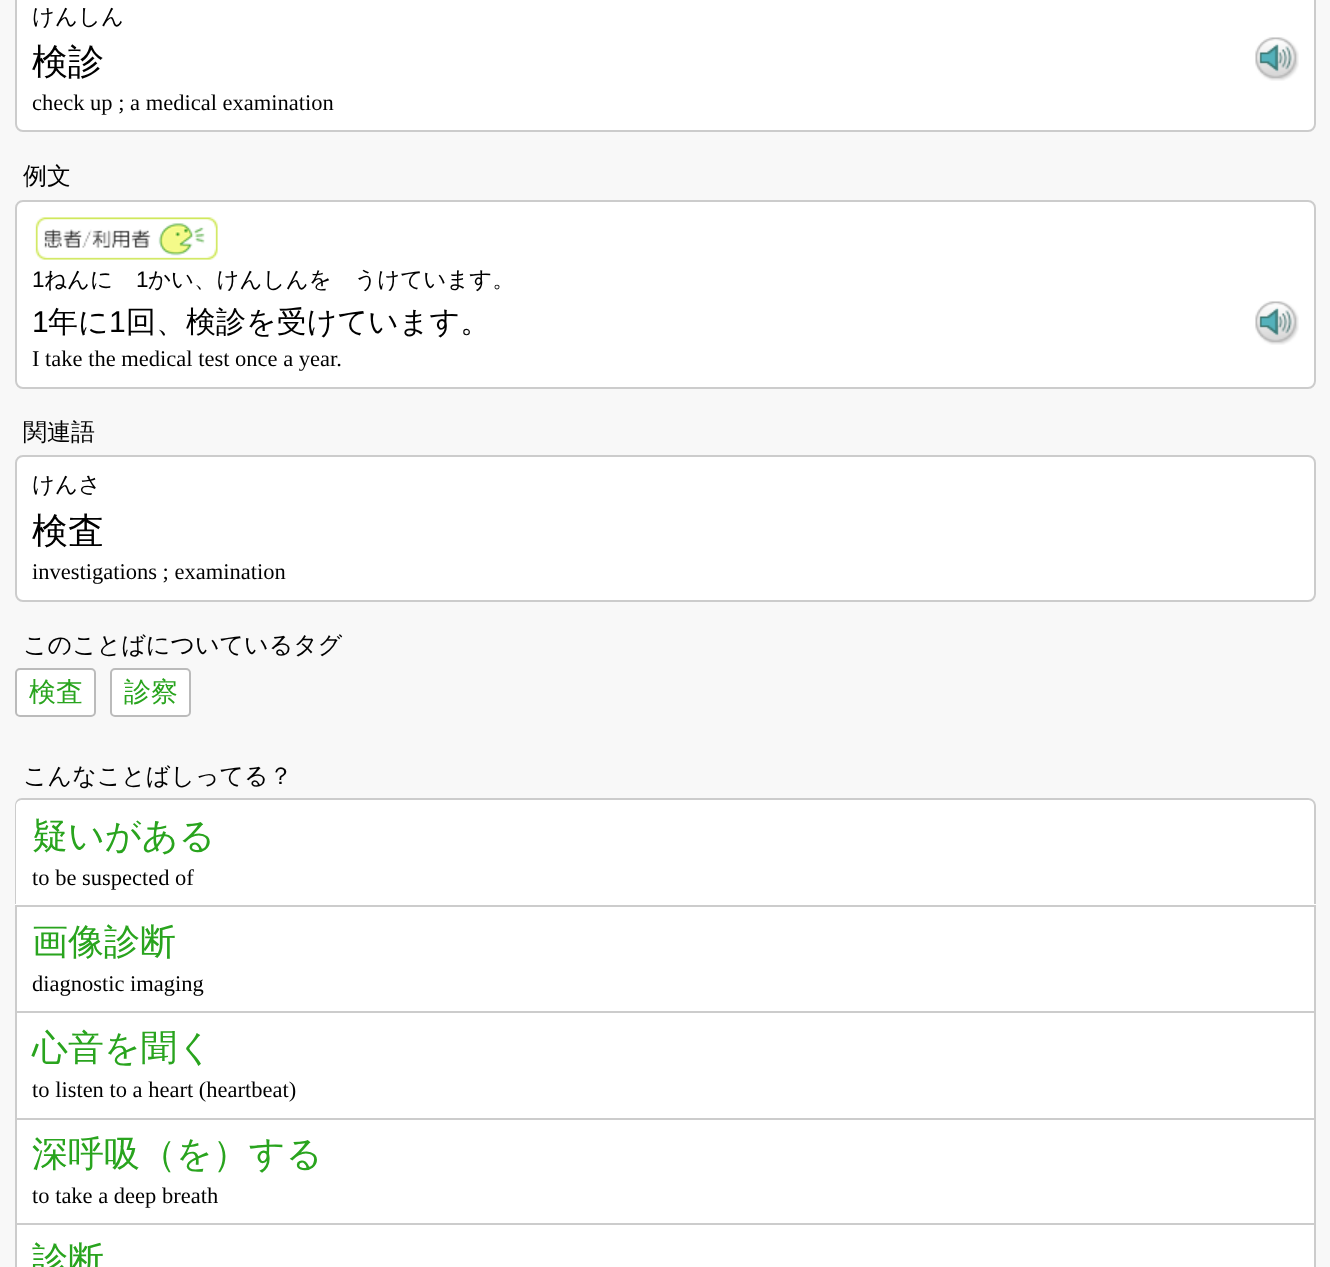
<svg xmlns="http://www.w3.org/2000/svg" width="1330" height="1267">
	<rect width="100%" height="100%" fill="#F8F8F8" />
	<rect x="16" y="-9" width="1299" height="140" rx="7" fill="#FFFFFF" stroke="#CCCCCC" stroke-width="2" />
	<text x="32" y="24" font-family="WenQuanYi Zen Hei" font-size="22.5" font-weight="500" fill="#000000">けんしん</text>
	<text x="32" y="74" font-family="WenQuanYi Zen Hei" font-size="36" font-weight="500" fill="#000000">検診</text>
	<image x="1255" y="37" width="44" height="44" href="assets/img1.png" />
	<text x="32" y="110" font-family="Liberation Serif" font-size="22.5" fill="#000000">check up ; a medical examination</text>
	<text x="23" y="184" font-family="WenQuanYi Zen Hei" font-size="24" font-weight="500" fill="#000000">例文</text>
	<rect x="16" y="201" width="1299" height="187" rx="7" fill="#FFFFFF" stroke="#CCCCCC" stroke-width="2" />
	<image x="35" y="217" width="183" height="43" href="assets/img2.png" />
	<text x="32" y="287" font-family="Liberation Sans" font-size="22.5" fill="#000000">1</text>
	<text x="44" y="287" font-family="WenQuanYi Zen Hei" font-size="22.5" font-weight="500" fill="#000000">ねんに</text>
	<text x="136" y="287" font-family="Liberation Sans" font-size="22.5" fill="#000000">1</text>
	<text x="148" y="287" font-family="WenQuanYi Zen Hei" font-size="22.5" font-weight="500" fill="#000000">かい、けんしんを　うけています。</text>
	<text x="32" y="332" font-family="Liberation Sans" font-size="30" fill="#000000">1</text>
	<text x="48" y="332" font-family="WenQuanYi Zen Hei" font-size="30" font-weight="500" fill="#000000">年に</text>
	<text x="109" y="332" font-family="Liberation Sans" font-size="30" fill="#000000">1</text>
	<text x="126" y="332" font-family="WenQuanYi Zen Hei" font-size="30" font-weight="500" fill="#000000">回、検診を受けています。</text>
	<image x="1255" y="301" width="44" height="44" href="assets/img1.png" />
	<text x="32" y="366" font-family="Liberation Serif" font-size="22.5" fill="#000000">I take the medical test once a year.</text>
	<text x="23" y="440" font-family="WenQuanYi Zen Hei" font-size="24" font-weight="500" fill="#000000">関連語</text>
	<rect x="16" y="456" width="1299" height="145" rx="7" fill="#FFFFFF" stroke="#CCCCCC" stroke-width="2" />
	<text x="32" y="492" font-family="WenQuanYi Zen Hei" font-size="22.5" font-weight="500" fill="#000000">けんさ</text>
	<text x="32" y="543" font-family="WenQuanYi Zen Hei" font-size="36" font-weight="500" fill="#000000">検査</text>
	<text x="32" y="579" font-family="Liberation Serif" font-size="22.5" fill="#000000">investigations ; examination</text>
	<text x="23" y="653" font-family="WenQuanYi Zen Hei" font-size="24" font-weight="500" fill="#000000">このことばについているタグ</text>
	<rect x="16" y="669" width="79" height="47" rx="4" fill="#FFFFFF" stroke="#BBBBBB" stroke-width="2" />
	<text x="29" y="701" font-family="WenQuanYi Zen Hei" font-size="27" font-weight="500" fill="#29A41E">検査</text>
	<rect x="111" y="669" width="79" height="47" rx="4" fill="#FFFFFF" stroke="#BBBBBB" stroke-width="2" />
	<text x="124" y="701" font-family="WenQuanYi Zen Hei" font-size="27" font-weight="500" fill="#29A41E">診察</text>
	<text x="23" y="784" font-family="WenQuanYi Zen Hei" font-size="24" font-weight="500" fill="#000000">こんなことばしってる？</text>
	<rect x="15" y="798" width="1301" height="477" rx="8" fill="#FFFFFF" />
	<path d="M22 798H1308C1312 798 1316 801 1316 806V904H15V806C15 801 18 798 22 798ZM22 800H1308C1311 800 1314 802 1314 806V904H16V806C16 802 19 800 22 800Z" fill="#CCCCCC" fill-rule="evenodd" />
	<text x="32" y="848" font-family="WenQuanYi Zen Hei" font-size="36" font-weight="500" fill="#29A41E">疑いがある</text>
	<text x="32" y="885" font-family="Liberation Serif" font-size="22.5" fill="#000000">to be suspected of</text>
	<rect x="15" y="905" width="1301" height="2" fill="#CCCCCC" />
	<rect x="1314" y="905" width="2" height="106" fill="#CCCCCC" />
	<rect x="15" y="905" width="2" height="106" fill="#CCCCCC" />
	<text x="32" y="954" font-family="WenQuanYi Zen Hei" font-size="36" font-weight="500" fill="#29A41E">画像診断</text>
	<text x="32" y="991" font-family="Liberation Serif" font-size="22.5" fill="#000000">diagnostic imaging</text>
	<rect x="15" y="1011" width="1301" height="2" fill="#CCCCCC" />
	<rect x="1314" y="1011" width="2" height="107" fill="#CCCCCC" />
	<rect x="15" y="1011" width="2" height="107" fill="#CCCCCC" />
	<text x="32" y="1060" font-family="WenQuanYi Zen Hei" font-size="36" font-weight="500" fill="#29A41E">心音を聞く</text>
	<text x="32" y="1097" font-family="Liberation Serif" font-size="22.5" fill="#000000">to listen to a heart (heartbeat)</text>
	<rect x="15" y="1118" width="1301" height="2" fill="#CCCCCC" />
	<rect x="1314" y="1118" width="2" height="105" fill="#CCCCCC" />
	<rect x="15" y="1118" width="2" height="105" fill="#CCCCCC" />
	<text x="32" y="1166" font-family="WenQuanYi Zen Hei" font-size="36" font-weight="500" fill="#29A41E">深呼吸（を）する</text>
	<text x="32" y="1203" font-family="Liberation Serif" font-size="22.5" fill="#000000">to take a deep breath</text>
	<rect x="16" y="1224" width="1299" height="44" fill="none" stroke="#CCCCCC" stroke-width="2" />
	<text x="32" y="1272" font-family="WenQuanYi Zen Hei" font-size="36" font-weight="500" fill="#29A41E">診断</text>
</svg>
